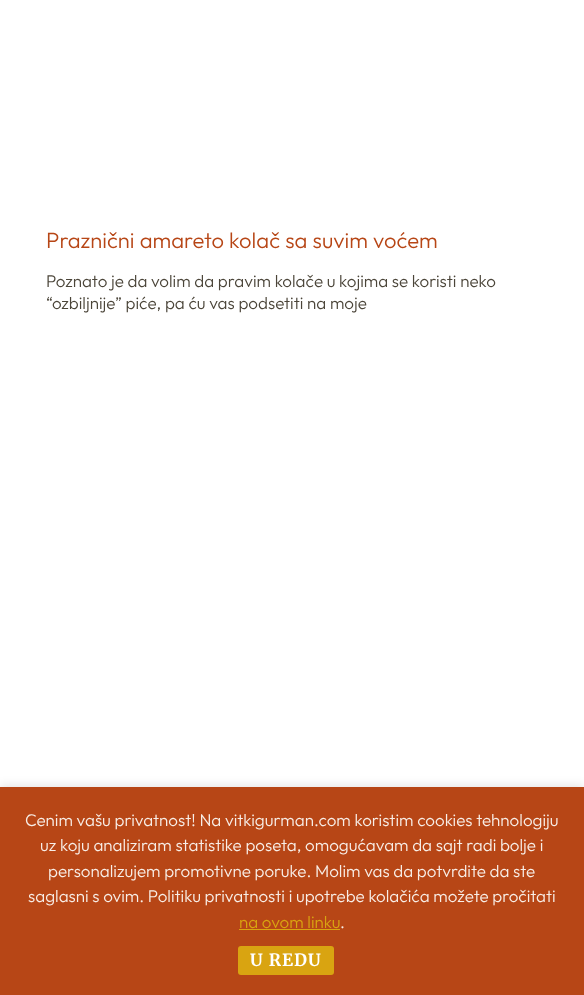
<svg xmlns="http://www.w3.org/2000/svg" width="584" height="995">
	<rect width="100%" height="100%" fill="#FFFFFF" />
	<text x="46" y="248" word-spacing="0.5" font-family="Outfit" font-size="22" font-weight="300" fill="#B74616">Praznični amareto kolač sa suvim voćem</text>
	<g font-family="Outfit" font-size="17" font-weight="300" fill="#4B4539">
		<text x="46" y="287">Poznato je da volim da pravim kolače u kojima se koristi neko</text>
		<text x="46" y="309">“ozbiljnije” piće, pa ću vas podsetiti na moje</text>
	</g>
	<rect x="0" y="785" width="584" height="208" fill="#000000" fill-opacity="0.1" filter="blur(5px)" />
	<rect x="0" y="787" width="584" height="208" fill="#B74616" />
	<g font-family="Outfit" font-size="17" font-weight="300" fill="#F8EEE7">
		<text x="25" y="826">Cenim vašu privatnost! Na vitkigurman.com koristim cookies tehnologiju</text>
		<text x="40" y="851">uz koju analiziram statistike poseta, omogućavam da sajt radi bolje i</text>
		<text x="48" y="877">personalizujem promotivne poruke. Molim vas da potvrdite da ste</text>
		<text x="28" y="902">saglasni s ovim. Politiku privatnosti i upotrebe kolačića možete pročitati</text>
	</g>
	<text x="239" y="928" font-family="Outfit" font-size="17" font-weight="300" fill="#D9A411">na ovom linku</text>
	<rect x="239" y="929" width="101" height="1" fill="#D9A411" />
	<text x="340" y="928" font-family="Outfit" font-size="17" font-weight="300" fill="#F8EEE7">.</text>
	<rect x="238" y="946" width="96" height="29" rx="3" fill="#D9A411" />
	<text x="250" y="966" font-family="Merriweather" font-size="17" font-weight="300" letter-spacing="1" fill="#FFFFFF">U REDU</text>
</svg>
